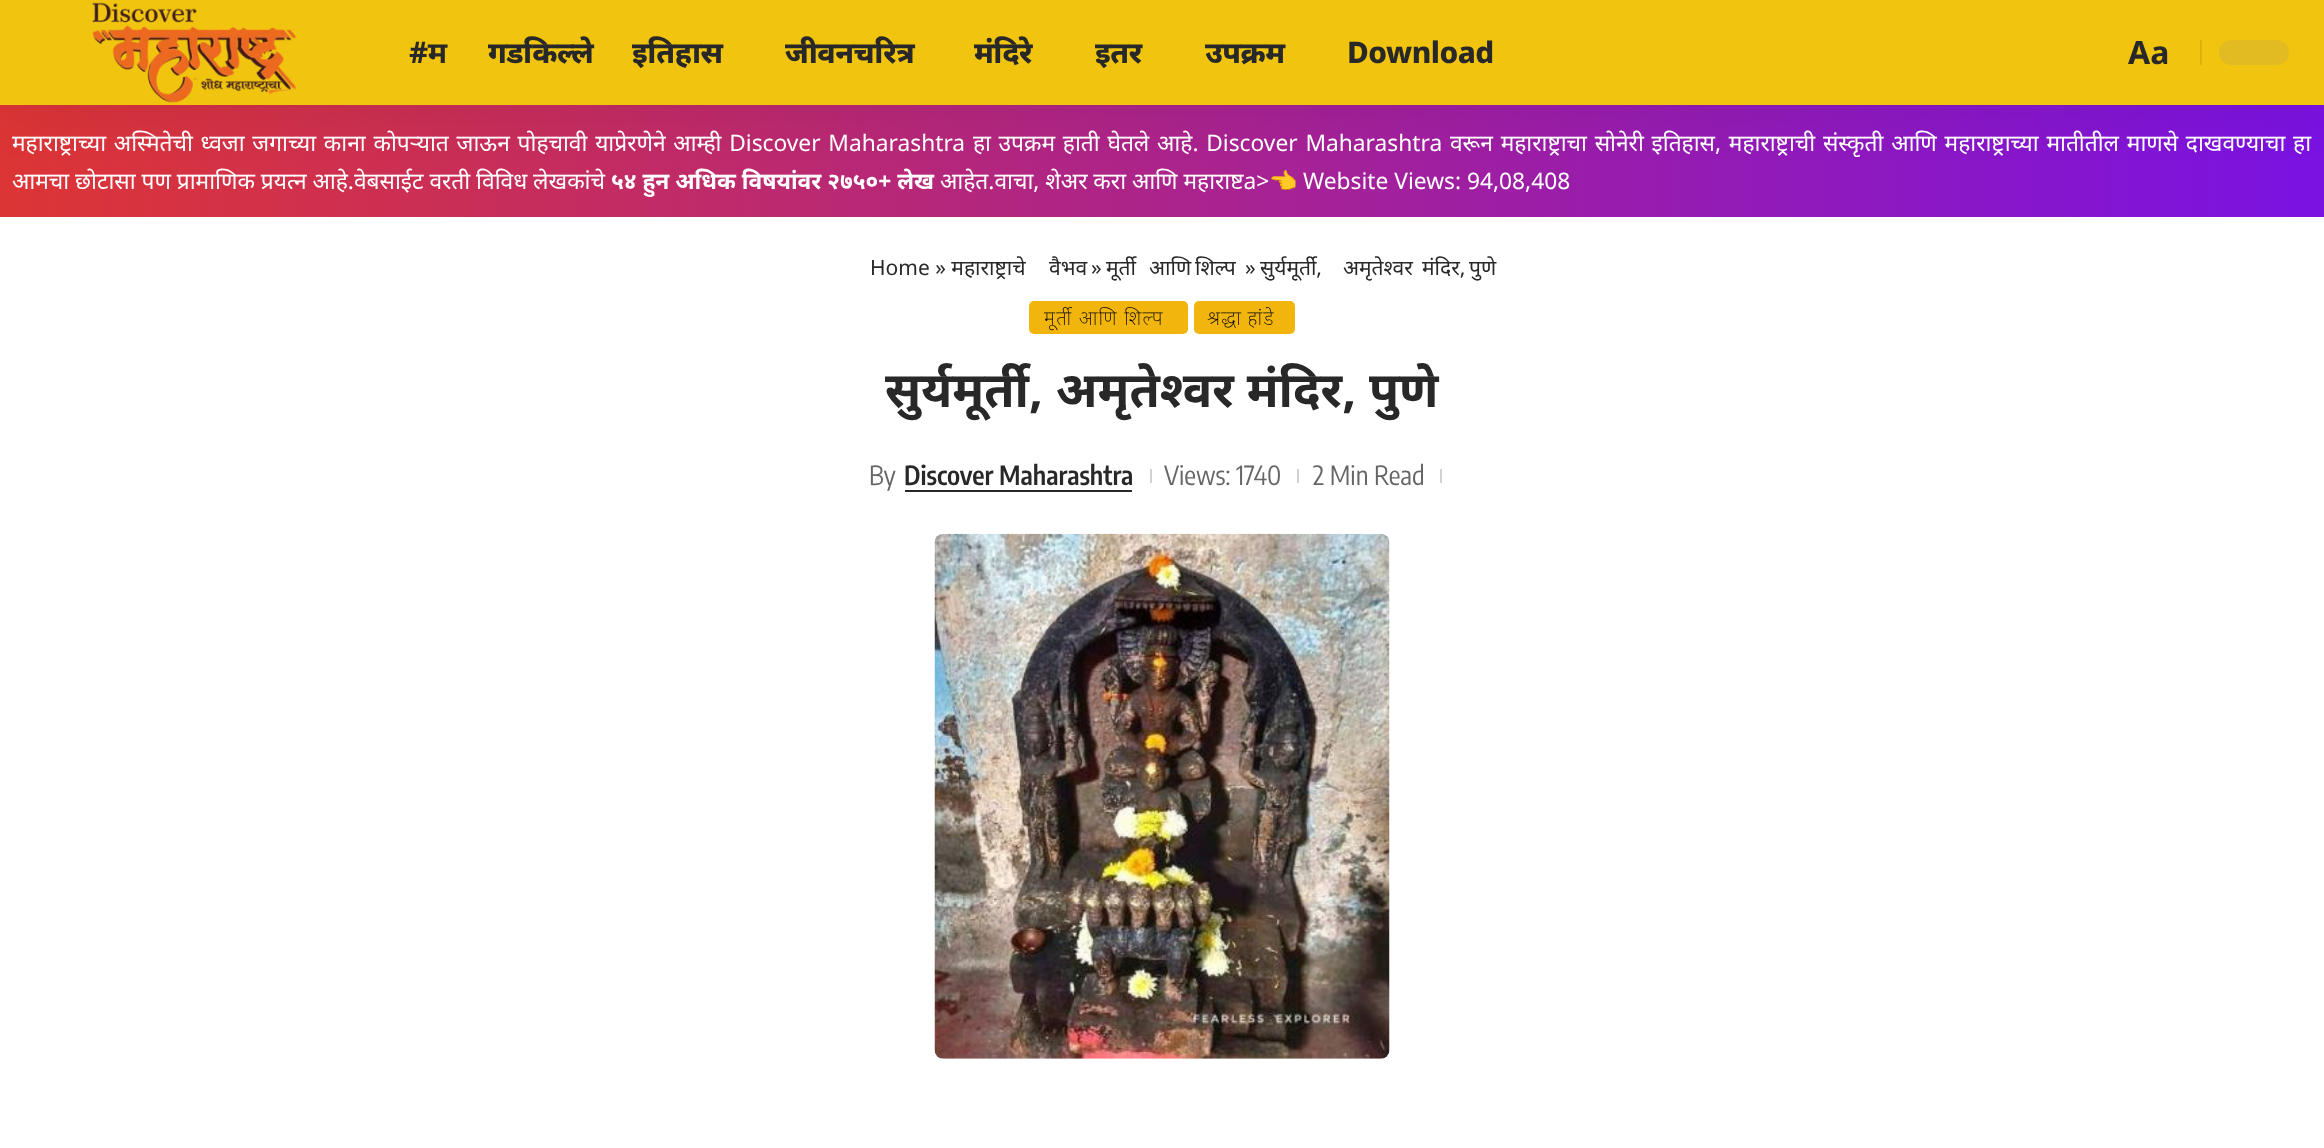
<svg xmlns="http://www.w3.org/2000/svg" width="2324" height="1148">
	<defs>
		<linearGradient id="g1" gradientUnits="userSpaceOnUse" x1="0" y1="161" x2="2324" y2="161"><stop offset="0" stop-color="#DD3535" /><stop offset="1" stop-color="#7A12E2" /></linearGradient>
	</defs>
	<rect width="100%" height="100%" fill="#FFFFFF" />
	<rect x="0" y="105" width="2324" height="112" fill="url(#g1)" />
	<rect x="0" y="7" width="2324" height="105" fill="#000000" fill-opacity="0.07" filter="blur(26px)" />
	<rect x="0" y="0" width="2324" height="105" fill="#F1C40F" />
	<image x="92" y="2" width="205" height="101" href="assets/img1.png" />
	<text x="409" y="63" font-family="Noto Sans" font-size="29.75" font-weight="700" letter-spacing="-0.5" fill="#282828">#म</text>
	<g font-family="Noto Sans" font-size="29.75" font-weight="800" letter-spacing="-0.5" fill="#282828">
		<text x="488" y="63">गडकिल्ले</text>
		<text x="632" y="63">इतिहास</text>
		<text x="785" y="63">जीवनचरित्र</text>
		<text x="974" y="63">मंदिरे</text>
		<text x="1095" y="63">इतर</text>
		<text x="1205" y="63">उपक्रम</text>
		<text x="1347" y="63">Download</text>
	</g>
	<text x="2128" y="64" font-family="Noto Sans" font-size="32" font-weight="700" fill="#282828">Aa</text>
	<rect x="2200" y="40" width="2" height="25" fill="#DDB40E" />
	<rect x="2219" y="40" width="70" height="25" rx="12.5" fill="#E1BB21" />
	<g font-family="Noto Sans" font-size="22.75" fill="#FFFFFF">
		<text x="12" y="151" word-spacing="1.85">महाराष्ट्राच्या अस्मितेची ध्वजा जगाच्या काना कोपर्‍यात जाऊन पोहचावी याप्रेरणेने आम्ही Discover Maharashtra हा उपक्रम हाती घेतले आहे. Discover Maharashtra वरून महाराष्ट्राचा सोनेरी इतिहास, महाराष्ट्राची संस्कृती आणि महाराष्ट्राच्या मातीतील माणसे दाखवण्याचा हा</text>
		<text x="12" y="189">आमचा छोटासा पण प्रामाणिक प्रयत्न आहे.वेबसाईट वरती विविध लेखकांचे</text>
	</g>
	<text x="611" y="189" font-family="Noto Sans" font-size="22.75" font-weight="700" fill="#FFFFFF">५४ हुन अधिक विषयांवर २७५०+ लेख</text>
	<text x="940" y="189" font-family="Noto Sans" font-size="22.75" fill="#FFFFFF">आहेत.वाचा, शेअर करा आणि महाराष्टa&gt;</text>
	<text x="1269" y="189" font-family="Noto Color Emoji" font-size="22.75" fill="#FFFFFF">👈</text>
	<text x="1303" y="189" font-family="Noto Sans" font-size="22.75" fill="#FFFFFF">Website Views: 94,08,408</text>
	<text x="870" y="275" font-family="Noto Sans" font-size="21" fill="#282828">Home » महाराष्ट्राचे</text>
	<text x="1049" y="275" font-family="Noto Sans" font-size="21" fill="#282828">वैभव</text>
	<text x="1091" y="275" font-family="Noto Sans" font-size="21" fill="#282828">»</text>
	<text x="1106" y="275" font-family="Noto Sans" font-size="21" fill="#282828">मूर्ती</text>
	<text x="1149" y="275" font-family="Noto Sans" font-size="21" fill="#282828">आणि</text>
	<text x="1195" y="275" font-family="Noto Sans" font-size="21" fill="#282828">शिल्प</text>
	<text x="1245" y="275" font-family="Noto Sans" font-size="21" fill="#282828">»</text>
	<text x="1260" y="275" font-family="Noto Sans" font-size="21" fill="#282828">सुर्यमूर्ती,</text>
	<text x="1343" y="275" font-family="Noto Sans" font-size="21" fill="#282828">अमृतेश्वर</text>
	<text x="1422" y="275" font-family="Noto Sans" font-size="21" fill="#282828">मंदिर,</text>
	<text x="1469" y="275" font-family="Noto Sans" font-size="21" fill="#282828">पुणे</text>
	<rect x="1029" y="301" width="159" height="33" rx="5" fill="#F2B50E" />
	<text x="1044" y="325" font-family="Noto Sans" font-size="20" font-weight="200" letter-spacing="1.25" fill="#000000">मूर्ती आणि शिल्प</text>
	<rect x="1194" y="301" width="101" height="33" rx="5" fill="#F2B50E" />
	<text x="1207" y="325" word-spacing="-1" font-family="Noto Sans" font-size="20" font-weight="200" letter-spacing="1.25" fill="#000000">श्रद्धा हांडे</text>
	<text x="885" y="407" font-family="Noto Sans" font-size="49" font-weight="700" fill="#282828">सुर्यमूर्ती, अमृतेश्वर मंदिर, पुणे</text>
	<text x="869" y="485" font-family="Encode Sans Condensed" font-size="26.25" fill="#666666">By</text>
	<text x="904" y="485" font-family="Encode Sans Condensed" font-size="26.25" font-weight="600" fill="#282828">Discover Maharashtra</text>
	<rect x="905" y="490" width="227" height="2" fill="#282828" />
	<rect x="1150" y="469" width="2" height="14" fill="#D1D1D1" />
	<text x="1164" y="485" font-family="Encode Sans Condensed" font-size="26.25" fill="#666666">Views: 1740</text>
	<rect x="1297" y="469" width="2" height="14" fill="#D1D1D1" />
	<text x="1313" y="485" font-family="Encode Sans Condensed" font-size="26.25" fill="#666666">2 Min Read</text>
	<rect x="1440" y="469" width="2" height="14" fill="#D1D1D1" />
	<image x="934" y="533" width="456" height="526" href="assets/img2.png" />
</svg>
